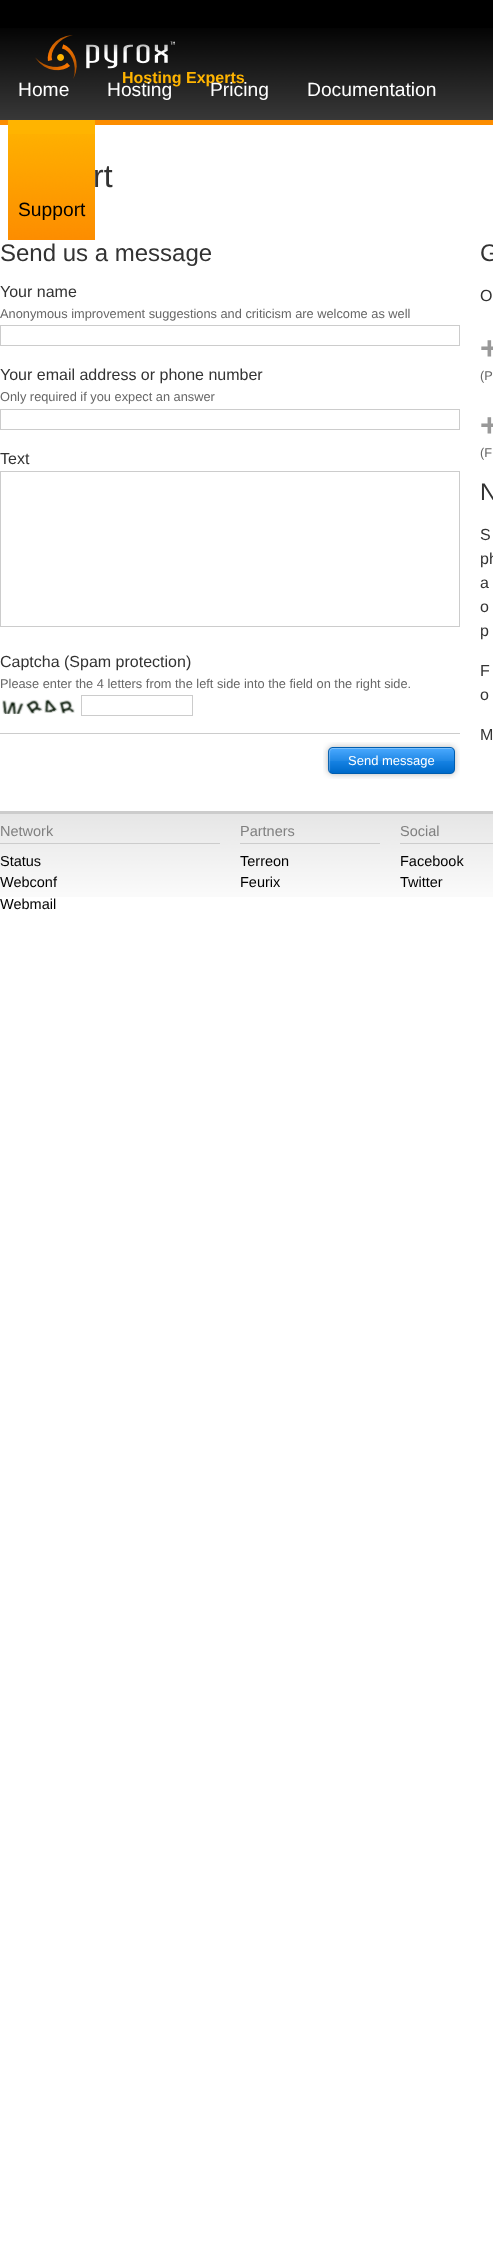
<svg xmlns="http://www.w3.org/2000/svg" width="493" height="2245">
	<rect width="100%" height="100%" fill="#FFFFFF" />
	<rect x="0" y="0" width="493" height="28" fill="#000000" />
	<image x="0" y="28" width="493" height="92" href="assets/img1.png" />
	<rect x="0" y="120" width="493" height="5" fill="#FC8D00" />
	<text x="122" y="83" font-family="Liberation Sans" font-size="16" font-weight="700" fill="#FFB400">Hosting Experts</text>
	<image x="35" y="35" width="140" height="44" href="assets/img2.png" />
	<g font-family="Liberation Sans" font-size="19.25" fill="#FFFFFF">
		<text x="18" y="96">Home</text>
		<text x="107" y="96">Hosting</text>
		<text x="210" y="96">Pricing</text>
		<text x="307" y="96">Documentation</text>
	</g>
	<rect x="8" y="120" width="87" height="14" fill="#FFB400" />
	<text x="93" y="187" font-family="Liberation Sans" font-size="32" fill="#333333">rt</text>
	<image x="8" y="134" width="87" height="106" href="assets/img3.png" />
	<text x="18" y="216" font-family="Liberation Sans" font-size="19.25" fill="#000000">Support</text>
	<text x="0" y="261" font-family="Liberation Sans" font-size="24" fill="#333333">Send us a message</text>
	<text x="0" y="297" font-family="Liberation Sans" font-size="16" fill="#333333">Your name</text>
	<text x="0" y="318" font-family="Liberation Sans" font-size="12.8" fill="#666666">Anonymous improvement suggestions and criticism are welcome as well</text>
	<rect x="0.5" y="325.5" width="459" height="20" fill="none" stroke="#CCCCCC" />
	<text x="0" y="380" font-family="Liberation Sans" font-size="16" fill="#333333">Your email address or phone number</text>
	<text x="0" y="401" font-family="Liberation Sans" font-size="12.8" fill="#666666">Only required if you expect an answer</text>
	<rect x="0.5" y="409.5" width="459" height="20" fill="none" stroke="#CCCCCC" />
	<text x="0" y="464" font-family="Liberation Sans" font-size="16" fill="#333333">Text</text>
	<rect x="0.5" y="471.5" width="459" height="155" fill="none" stroke="#CCCCCC" />
	<text x="0" y="667" font-family="Liberation Sans" font-size="16" fill="#333333">Captcha (Spam protection)</text>
	<text x="0" y="688" font-family="Liberation Sans" font-size="12.8" fill="#666666">Please enter the 4 letters from the left side into the field on the right side.</text>
	<image x="2" y="699" width="73" height="15" href="assets/img4.png" />
	<rect x="81.5" y="695.5" width="111" height="20" fill="none" stroke="#CCCCCC" />
	<rect x="0" y="733" width="460" height="1" fill="#CCCCCC" />
	<image x="323" y="742" width="127" height="37" href="assets/img5.png" />
	<image x="450" y="742" width="10" height="37" href="assets/img6.png" />
	<text x="348" y="765" font-family="Liberation Sans" font-size="13" fill="#FFFFFF">Send message</text>
	<text x="480" y="261" font-family="Liberation Sans" font-size="24" fill="#333333">G</text>
	<text x="480" y="301" font-family="Liberation Sans" font-size="16" fill="#333333">O</text>
	<text x="480" y="359" font-family="Liberation Sans" font-size="32" font-weight="700" fill="#999999">+</text>
	<text x="480" y="380" font-family="Liberation Sans" font-size="12.8" fill="#666666">(P</text>
	<text x="480" y="436" font-family="Liberation Sans" font-size="32" font-weight="700" fill="#999999">+</text>
	<text x="480" y="457" font-family="Liberation Sans" font-size="12.8" fill="#666666">(F</text>
	<text x="480" y="500" font-family="Liberation Sans" font-size="24" fill="#333333">N</text>
	<g font-family="Liberation Sans" font-size="16" fill="#333333">
		<text x="480" y="540">S</text>
		<text x="480" y="564">ph</text>
		<text x="480" y="588">a</text>
		<text x="480" y="612">o</text>
		<text x="480" y="636">p</text>
		<text x="480" y="676">F</text>
		<text x="480" y="700">o</text>
		<text x="480" y="740">M</text>
	</g>
	<image x="0" y="814" width="493" height="83" href="assets/img7.png" />
	<rect x="0" y="811" width="493" height="3" fill="#CCCCCC" />
	<rect x="0" y="843" width="220" height="1" fill="#CCCCCC" />
	<text x="0" y="836" font-family="Liberation Sans" font-size="14.5" fill="#808080">Network</text>
	<g font-family="Liberation Sans" font-size="14.5" fill="#000000">
		<text x="0" y="866">Status</text>
		<text x="0" y="887">Webconf</text>
		<text x="0" y="909">Webmail</text>
	</g>
	<rect x="240" y="843" width="140" height="1" fill="#CCCCCC" />
	<text x="240" y="836" font-family="Liberation Sans" font-size="14.5" fill="#808080">Partners</text>
	<g font-family="Liberation Sans" font-size="14.5" fill="#000000">
		<text x="240" y="866">Terreon</text>
		<text x="240" y="887">Feurix</text>
	</g>
	<rect x="400" y="843" width="93" height="1" fill="#CCCCCC" />
	<text x="400" y="836" font-family="Liberation Sans" font-size="14.5" fill="#808080">Social</text>
	<g font-family="Liberation Sans" font-size="14.5" fill="#000000">
		<text x="400" y="866">Facebook</text>
		<text x="400" y="887">Twitter</text>
	</g>
</svg>
